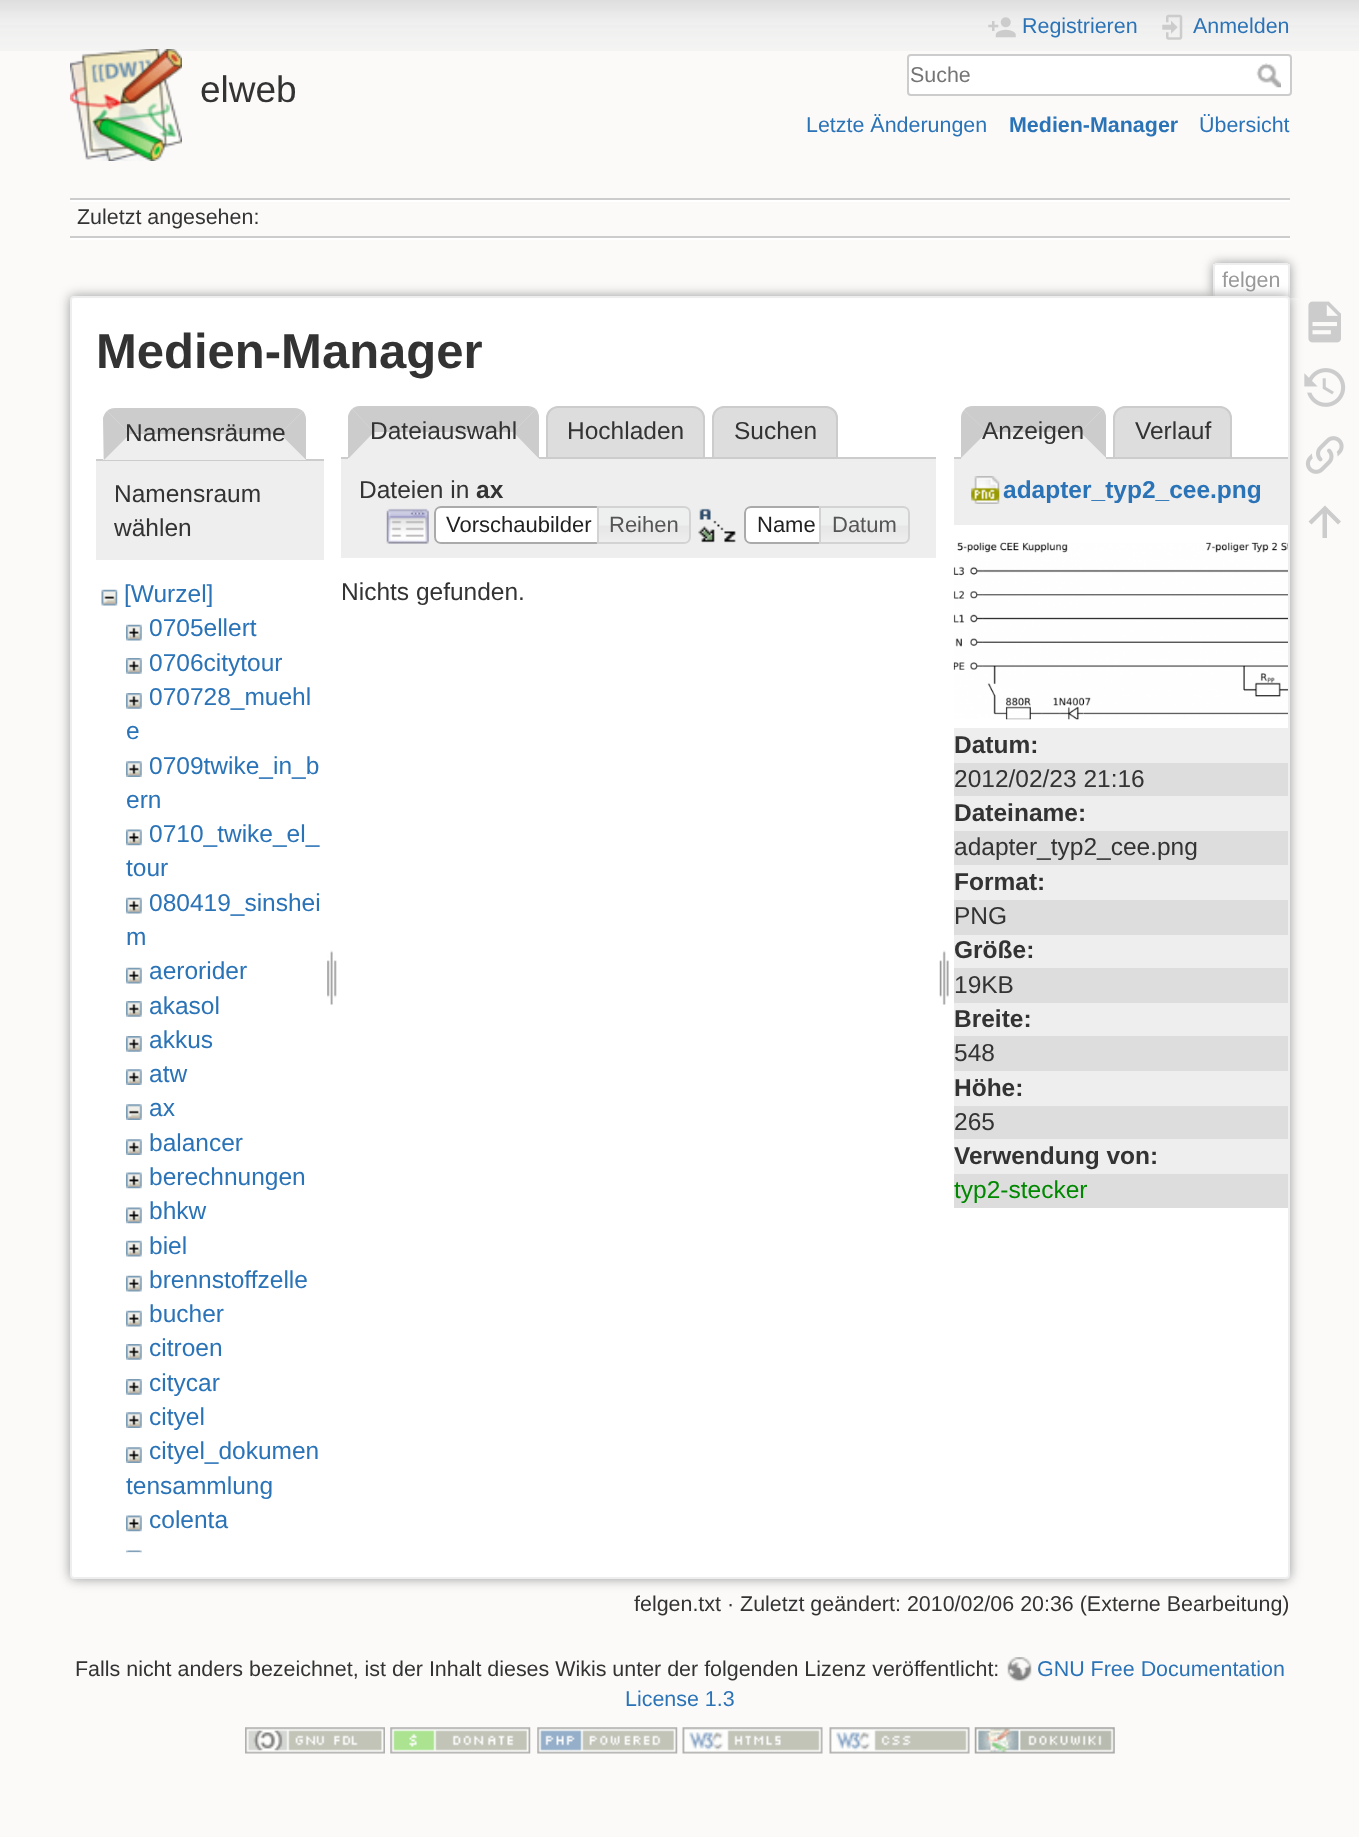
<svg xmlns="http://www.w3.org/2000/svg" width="1359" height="1837">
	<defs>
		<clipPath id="clip1"><rect x="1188" y="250" width="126" height="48" /></clipPath>
	</defs>
	<rect width="100%" height="100%" fill="#FBFAF9" />
	<image x="0" y="0" width="1359" height="51" href="assets/img1.png" />
	<image x="70" y="49" width="112" height="112" href="assets/img2.png" />
	<text x="200" y="102" font-family="Liberation Sans" font-size="37" fill="#333333">elweb</text>
	<image x="988" y="17" width="28" height="21" href="assets/img3.png" />
	<text x="1022" y="33" font-family="Liberation Sans" font-size="21.45" fill="#2B73B7">Registrieren</text>
	<image x="1162" y="14" width="21" height="26" href="assets/img4.png" />
	<text x="1193" y="33" font-family="Liberation Sans" font-size="21.45" fill="#2B73B7">Anmelden</text>
	<rect x="908" y="55" width="383" height="40" rx="3" fill="#FFFFFF" stroke="#CCCCCC" stroke-width="2" />
	<text x="910" y="82" font-family="Liberation Sans" font-size="21.45" fill="#757575">Suche</text>
	<image x="1256" y="63" width="25" height="25" href="assets/img5.png" />
	<text x="806" y="132" font-family="Liberation Sans" font-size="21.45" fill="#2B73B7">Letzte Änderungen</text>
	<text x="1009" y="132" font-family="Liberation Sans" font-size="21.45" font-weight="700" fill="#2B73B7">Medien-Manager</text>
	<text x="1199" y="132" font-family="Liberation Sans" font-size="21.45" fill="#2B73B7">Übersicht</text>
	<rect x="70" y="198" width="1220" height="2" fill="#CCCCCC" />
	<rect x="70" y="238" width="1220" height="2" fill="#FFFFFF" />
	<rect x="70" y="200" width="1220" height="2" fill="#FFFFFF" />
	<rect x="70" y="236" width="1220" height="2" fill="#CCCCCC" />
	<text x="77" y="224" font-family="Liberation Sans" font-size="21.45" fill="#333333">Zuletzt angesehen:</text>
	<g clip-path="url(#clip1)">
		<rect x="1213" y="263" width="77" height="35" rx="4" fill="#999999" filter="blur(5.5px)" />
	</g>
	<path d="M1217 264H1286C1287 264 1288 265 1288 266V298H1215V266C1215 265 1216 264 1217 264Z" fill="#FFFFFF" />
	<rect x="1215" y="263" width="73" height="2" fill="#EEEEEE" />
	<rect x="1288" y="264" width="2" height="34" fill="#EEEEEE" />
	<rect x="1213" y="264" width="2" height="34" fill="#EEEEEE" />
	<text x="1222" y="287" font-family="Liberation Sans" font-size="21.45" fill="#999999">felgen</text>
	<rect x="70" y="296" width="1220" height="1283" rx="4" fill="#999999" filter="blur(6px)" />
	<rect x="71" y="297" width="1218" height="1281" rx="3" fill="#FFFFFF" stroke="#EEEEEE" stroke-width="2" />
	<text x="96" y="368" font-family="Liberation Sans" font-size="49" font-weight="700" fill="#333333">Medien-Manager</text>
	<rect x="96" y="459" width="228" height="2" fill="#CCCCCC" />
	<path d="M115 408H294C300.5 408 306 413.5 306 420V460H103V420C103 413.5 108.5 408 115 408Z" fill="#EEEEEE" />
	<path d="M116 408C112 408 109 409 107 411L130 434H280L303 411C300 409 298 408 294 408Z" fill="#CCCCCC" />
	<path d="M306 460V420C306 416 305 414 303 411L280 434Z" fill="#CCCCCC" />
	<path d="M306 460L280 434H130L104 460Z" fill="#EEEEEE" />
	<path d="M103 418C104 415 105 413 107 411L130 434L104 460Z" fill="#CCCCCC" />
	<text x="125" y="441" font-family="Liberation Sans" font-size="24.5" fill="#333333">Namensräume</text>
	<rect x="96" y="461" width="228" height="99" fill="#EEEEEE" />
	<g font-family="Liberation Sans" font-size="24.5" fill="#333333">
		<text x="114" y="502">Namensraum</text>
		<text x="114" y="536">wählen</text>
	</g>
	<image x="101" y="589" width="17" height="17" href="assets/img6.png" />
	<text x="124" y="602" font-family="Liberation Sans" font-size="24.5" fill="#2B73B7">[Wurzel]</text>
	<image x="126" y="624" width="16" height="17" href="assets/img7.png" />
	<text x="149" y="636" font-family="Liberation Sans" font-size="24.5" fill="#2B73B7">0705ellert</text>
	<image x="126" y="658" width="16" height="16" href="assets/img8.png" />
	<text x="149" y="671" font-family="Liberation Sans" font-size="24.5" fill="#2B73B7">0706citytour</text>
	<image x="126" y="693" width="16" height="16" href="assets/img8.png" />
	<g font-family="Liberation Sans" font-size="24.5" fill="#2B73B7">
		<text x="149" y="705">070728_muehl</text>
		<text x="126" y="739">e</text>
	</g>
	<image x="126" y="761" width="16" height="16" href="assets/img9.png" />
	<g font-family="Liberation Sans" font-size="24.5" fill="#2B73B7">
		<text x="149" y="774">0709twike_in_b</text>
		<text x="126" y="808">ern</text>
	</g>
	<image x="126" y="829" width="16" height="17" href="assets/img10.png" />
	<g font-family="Liberation Sans" font-size="24.5" fill="#2B73B7">
		<text x="149" y="842">0710_twike_el_</text>
		<text x="126" y="876">tour</text>
	</g>
	<image x="126" y="897" width="16" height="17" href="assets/img7.png" />
	<g font-family="Liberation Sans" font-size="24.5" fill="#2B73B7">
		<text x="149" y="911">080419_sinshei</text>
		<text x="126" y="945">m</text>
	</g>
	<image x="126" y="967" width="16" height="17" href="assets/img7.png" />
	<text x="149" y="979" font-family="Liberation Sans" font-size="24.5" fill="#2B73B7">aerorider</text>
	<image x="126" y="1001" width="16" height="16" href="assets/img8.png" />
	<text x="149" y="1014" font-family="Liberation Sans" font-size="24.5" fill="#2B73B7">akasol</text>
	<image x="126" y="1036" width="16" height="16" href="assets/img8.png" />
	<text x="149" y="1048" font-family="Liberation Sans" font-size="24.5" fill="#2B73B7">akkus</text>
	<image x="126" y="1069" width="16" height="16" href="assets/img9.png" />
	<text x="149" y="1082" font-family="Liberation Sans" font-size="24.5" fill="#2B73B7">atw</text>
	<image x="126" y="1104" width="16" height="16" href="assets/img11.png" />
	<text x="149" y="1116" font-family="Liberation Sans" font-size="24.5" fill="#2B73B7">ax</text>
	<image x="126" y="1139" width="16" height="16" href="assets/img9.png" />
	<text x="149" y="1151" font-family="Liberation Sans" font-size="24.5" fill="#2B73B7">balancer</text>
	<image x="126" y="1172" width="16" height="17" href="assets/img10.png" />
	<text x="149" y="1185" font-family="Liberation Sans" font-size="24.5" fill="#2B73B7">berechnungen</text>
	<image x="126" y="1207" width="16" height="17" href="assets/img10.png" />
	<text x="149" y="1219" font-family="Liberation Sans" font-size="24.5" fill="#2B73B7">bhkw</text>
	<image x="126" y="1240" width="16" height="17" href="assets/img7.png" />
	<text x="149" y="1254" font-family="Liberation Sans" font-size="24.5" fill="#2B73B7">biel</text>
	<image x="126" y="1275" width="16" height="17" href="assets/img7.png" />
	<text x="149" y="1288" font-family="Liberation Sans" font-size="24.5" fill="#2B73B7">brennstoffzelle</text>
	<image x="126" y="1310" width="16" height="17" href="assets/img7.png" />
	<text x="149" y="1322" font-family="Liberation Sans" font-size="24.5" fill="#2B73B7">bucher</text>
	<image x="126" y="1344" width="16" height="16" href="assets/img8.png" />
	<text x="149" y="1356" font-family="Liberation Sans" font-size="24.5" fill="#2B73B7">citroen</text>
	<image x="126" y="1379" width="16" height="16" href="assets/img8.png" />
	<text x="149" y="1391" font-family="Liberation Sans" font-size="24.5" fill="#2B73B7">citycar</text>
	<image x="126" y="1412" width="16" height="16" href="assets/img9.png" />
	<text x="149" y="1425" font-family="Liberation Sans" font-size="24.5" fill="#2B73B7">cityel</text>
	<image x="126" y="1447" width="16" height="16" href="assets/img9.png" />
	<g font-family="Liberation Sans" font-size="24.5" fill="#2B73B7">
		<text x="149" y="1459">cityel_dokumen</text>
		<text x="126" y="1494">tensammlung</text>
	</g>
	<image x="126" y="1515" width="16" height="17" href="assets/img10.png" />
	<text x="149" y="1528" font-family="Liberation Sans" font-size="24.5" fill="#2B73B7">colenta</text>
	<image x="126" y="1550" width="16" height="3" href="assets/img12.png" />
	<image x="327" y="950" width="10" height="55" href="assets/img13.png" />
	<path d="M558 407H693C699 407 704 412 704 418V458H547V418C547 412 552 407 558 407Z" fill="#DDDDDD" stroke="#CCCCCC" stroke-width="2" />
	<path d="M724 407H826C832 407 837 412 837 418V458H713V418C713 412 718 407 724 407Z" fill="#DDDDDD" stroke="#CCCCCC" stroke-width="2" />
	<rect x="341" y="457" width="595" height="2" fill="#CCCCCC" />
	<path d="M360 406H527C533.5 406 539 411.5 539 418V459H348V418C348 411.5 353.5 406 360 406Z" fill="#EEEEEE" />
	<path d="M360 406H527C530 406 534 407 536 409L513 432H374L352 409C354 407 357 406 360 406Z" fill="#CCCCCC" />
	<path d="M536 409L513 432L538 458H539V418C539 414 538 412 536 409Z" fill="#CCCCCC" />
	<path d="M538 458L513 432H374L349 458Z" fill="#EEEEEE" />
	<path d="M349 458L374 432L352 409C350 411 349 413 348 416V458Z" fill="#CCCCCC" />
	<g font-family="Liberation Sans" font-size="24.5" fill="#333333">
		<text x="370" y="439">Dateiauswahl</text>
		<text x="567" y="439">Hochladen</text>
		<text x="734" y="439">Suchen</text>
	</g>
	<rect x="341" y="459" width="595" height="99" fill="#EEEEEE" />
	<text x="359" y="498" font-family="Liberation Sans" font-size="24.5" fill="#333333">Dateien in</text>
	<text x="476" y="498" font-family="Liberation Sans" font-size="24.5" font-weight="700" fill="#333333">ax</text>
	<image x="386" y="508" width="43" height="36" href="assets/img14.png" />
	<path d="M441 506H606V544H441C437 544 434 541 434 537V513C434 509 437 506 441 506Z" fill="#FFFFFF" />
	<image x="434" y="506" width="5" height="38" href="assets/img15.png" />
	<path d="M441 507H605V543H441C437.5 543 435 540.5 435 537V513C435 509.5 437.5 507 441 507Z" fill="none" stroke="#AAAAAA" stroke-width="2" />
	<text x="446" y="532" font-family="Liberation Sans" font-size="22" fill="#212121">Vorschaubilder</text>
	<image x="596" y="506" width="95" height="38" href="assets/img16.png" />
	<path d="M598 507H684C687.5 507 690 509.5 690 513V537C690 540.5 687.5 543 684 543H598Z" fill="none" stroke="#D3D3D3" stroke-width="2" />
	<text x="609" y="532" font-family="Liberation Sans" font-size="22" fill="#555555">Reihen</text>
	<image x="698" y="508" width="38" height="35" href="assets/img17.png" />
	<path d="M751 506H828V544H751C747 544 744 541 744 537V513C744 509 747 506 751 506Z" fill="#FFFFFF" />
	<image x="744" y="506" width="5" height="38" href="assets/img18.png" />
	<path d="M751 507H827V543H751C747.5 543 745 540.5 745 537V513C745 509.5 747.5 507 751 507Z" fill="none" stroke="#AAAAAA" stroke-width="2" />
	<text x="757" y="532" font-family="Liberation Sans" font-size="22" fill="#212121">Name</text>
	<image x="821" y="506" width="89" height="38" href="assets/img19.png" />
	<path d="M820 507H903C906.5 507 909 509.5 909 513V537C909 540.5 906.5 543 903 543H820Z" fill="none" stroke="#D3D3D3" stroke-width="2" />
	<text x="832" y="532" font-family="Liberation Sans" font-size="22" fill="#555555">Datum</text>
	<text x="341" y="600" font-family="Liberation Sans" font-size="24.5" fill="#333333">Nichts gefunden.</text>
	<image x="939" y="950" width="10" height="55" href="assets/img20.png" />
	<path d="M1125 407H1220C1226 407 1231 412 1231 418V458H1114V418C1114 412 1119 407 1125 407Z" fill="#DDDDDD" stroke="#CCCCCC" stroke-width="2" />
	<rect x="954" y="457" width="334" height="2" fill="#CCCCCC" />
	<path d="M973 406H1094C1100.5 406 1106 411.5 1106 418V459H961V418C961 411.5 966.5 406 973 406Z" fill="#EEEEEE" />
	<path d="M973 406H1094C1098 406 1100 407 1103 409L1080 432H987L964 410C966 407 969 406 973 406Z" fill="#CCCCCC" />
	<path d="M1103 409L1080 432L1106 458V418C1106 414 1105 412 1103 409Z" fill="#CCCCCC" />
	<path d="M1106 458L1080 432H987L961 458Z" fill="#EEEEEE" />
	<path d="M964 410C962 412 961 415 961 418V458L987 432Z" fill="#CCCCCC" />
	<g font-family="Liberation Sans" font-size="24.5" fill="#333333">
		<text x="982" y="439">Anzeigen</text>
		<text x="1135" y="439">Verlauf</text>
	</g>
	<rect x="954" y="459" width="334" height="66" fill="#EEEEEE" />
	<image x="971" y="476" width="29" height="28" href="assets/img21.png" />
	<text x="1003" y="498" font-family="Liberation Sans" font-size="24.5" font-weight="700" fill="#2B73B7">adapter_typ2_cee.png</text>
	<image x="953" y="542" width="335" height="178" href="assets/img22.png" />
	<rect x="954" y="728" width="334" height="35" fill="#EEEEEE" />
	<text x="954" y="753" font-family="Liberation Sans" font-size="24.5" font-weight="700" fill="#333333">Datum:</text>
	<rect x="954" y="763" width="334" height="33" fill="#DDDDDD" />
	<text x="954" y="787" font-family="Liberation Sans" font-size="24.5" fill="#333333">2012/02/23 21:16</text>
	<rect x="954" y="796" width="334" height="35" fill="#EEEEEE" />
	<text x="954" y="821" font-family="Liberation Sans" font-size="24.5" font-weight="700" fill="#333333">Dateiname:</text>
	<rect x="954" y="831" width="334" height="34" fill="#DDDDDD" />
	<text x="954" y="855" font-family="Liberation Sans" font-size="24.5" fill="#333333">adapter_typ2_cee.png</text>
	<rect x="954" y="865" width="334" height="35" fill="#EEEEEE" />
	<text x="954" y="890" font-family="Liberation Sans" font-size="24.5" font-weight="700" fill="#333333">Format:</text>
	<rect x="954" y="900" width="334" height="35" fill="#DDDDDD" />
	<text x="954" y="924" font-family="Liberation Sans" font-size="24.5" fill="#333333">PNG</text>
	<rect x="954" y="935" width="334" height="33" fill="#EEEEEE" />
	<text x="954" y="958" font-family="Liberation Sans" font-size="24.5" font-weight="700" fill="#333333">Größe:</text>
	<rect x="954" y="968" width="334" height="35" fill="#DDDDDD" />
	<text x="954" y="993" font-family="Liberation Sans" font-size="24.5" fill="#333333">19KB</text>
	<rect x="954" y="1003" width="334" height="33" fill="#EEEEEE" />
	<text x="954" y="1027" font-family="Liberation Sans" font-size="24.5" font-weight="700" fill="#333333">Breite:</text>
	<rect x="954" y="1036" width="334" height="35" fill="#DDDDDD" />
	<text x="954" y="1061" font-family="Liberation Sans" font-size="24.5" fill="#333333">548</text>
	<rect x="954" y="1071" width="334" height="35" fill="#EEEEEE" />
	<text x="954" y="1096" font-family="Liberation Sans" font-size="24.5" font-weight="700" fill="#333333">Höhe:</text>
	<rect x="954" y="1106" width="334" height="33" fill="#DDDDDD" />
	<text x="954" y="1130" font-family="Liberation Sans" font-size="24.5" fill="#333333">265</text>
	<rect x="954" y="1139" width="334" height="35" fill="#EEEEEE" />
	<text x="954" y="1164" font-family="Liberation Sans" font-size="24.5" font-weight="700" fill="#333333">Verwendung von:</text>
	<rect x="954" y="1174" width="334" height="34" fill="#DDDDDD" />
	<text x="954" y="1198" font-family="Liberation Sans" font-size="24.5" fill="#008800">typ2-stecker</text>
	<text x="634" y="1611" font-family="Liberation Sans" font-size="21.45" fill="#333333">felgen.txt · Zuletzt geändert: 2010/02/06 20:36 (Externe Bearbeitung)</text>
	<image x="1308" y="301" width="33" height="42" href="assets/img23.png" />
	<image x="1304" y="368" width="42" height="39" href="assets/img24.png" />
	<image x="1305" y="436" width="39" height="38" href="assets/img25.png" />
	<path d="M1327 538H1322.5V513.5L1311.5 524.5L1308.5 521.5L1325 505.5L1341 521.5L1338 524.5L1327 513.5Z" fill="#CCCCCC" />
	<text x="75" y="1676" font-family="Liberation Sans" font-size="21.45" fill="#333333">Falls nicht anders bezeichnet, ist der Inhalt dieses Wikis unter der folgenden Lizenz veröffentlicht:</text>
	<image x="1007" y="1657" width="25" height="25" href="assets/img26.png" />
	<g font-family="Liberation Sans" font-size="21.45" fill="#2B73B7">
		<text x="1037" y="1676">GNU Free Documentation</text>
		<text x="625" y="1706">License 1.3</text>
	</g>
	<image x="245" y="1727" width="140" height="27" href="assets/img27.png" />
	<image x="390" y="1727" width="141" height="27" href="assets/img28.png" />
	<image x="537" y="1727" width="141" height="27" href="assets/img29.png" />
	<image x="682" y="1727" width="141" height="27" href="assets/img30.png" />
	<image x="829" y="1727" width="141" height="27" href="assets/img31.png" />
	<image x="974" y="1727" width="141" height="27" href="assets/img32.png" />
</svg>
